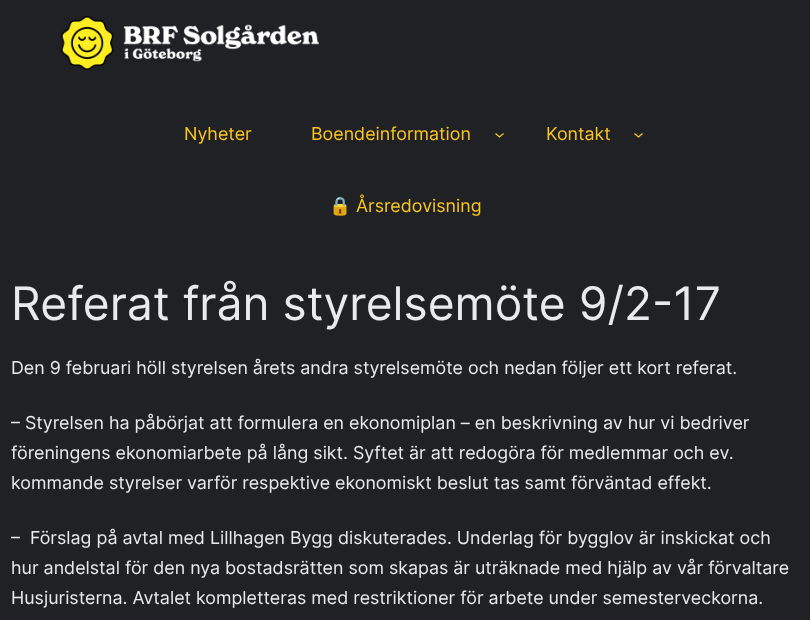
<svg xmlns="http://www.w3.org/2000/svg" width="810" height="620">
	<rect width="100%" height="100%" fill="#202124" />
	<image x="61" y="16" width="258" height="54" href="assets/img1.png" />
	<g font-family="Inter" font-size="17.85" fill="#FCC621">
		<text x="184" y="140">Nyheter</text>
		<text x="311" y="140">Boendeinformation</text>
	</g>
	<path d="M495.5 133.5L499.5 137L503.5 133.5" fill="none" stroke="#FCC621" stroke-width="1.3" />
	<text x="546" y="140" font-family="Inter" font-size="17.85" fill="#FCC621">Kontakt</text>
	<path d="M634.5 133.5L638.5 137L642.5 133.5" fill="none" stroke="#FCC621" stroke-width="1.3" />
	<text x="329" y="212" font-family="Noto Color Emoji" font-size="17.85" fill="#FCC621">🔒</text>
	<text x="356" y="212" font-family="Inter" font-size="17.85" fill="#FCC621">Årsredovisning</text>
	<text x="11" y="320" font-family="Inter" font-size="46.2" fill="#E8EAED">Referat från styrelsemöte 9/2-17</text>
	<g font-family="Inter" font-size="17.85" fill="#E8EAED">
		<text x="11" y="374">Den 9 februari höll styrelsen årets andra styrelsemöte och nedan följer ett kort referat.</text>
		<text x="11" y="429">– Styrelsen ha påbörjat att formulera en ekonomiplan – en beskrivning av hur vi bedriver</text>
		<text x="11" y="459">föreningens ekonomiarbete på lång sikt. Syftet är att redogöra för medlemmar och ev.</text>
		<text x="11" y="489">kommande styrelser varför respektive ekonomiskt beslut tas samt förväntad effekt.</text>
		<text x="11" y="544" xml:space="preserve">–  Förslag på avtal med Lillhagen Bygg diskuterades. Underlag för bygglov är inskickat och</text>
		<text x="11" y="574">hur andelstal för den nya bostadsrätten som skapas är uträknade med hjälp av vår förvaltare</text>
		<text x="11" y="604">Husjuristerna. Avtalet kompletteras med restriktioner för arbete under semesterveckorna.</text>
	</g>
</svg>
